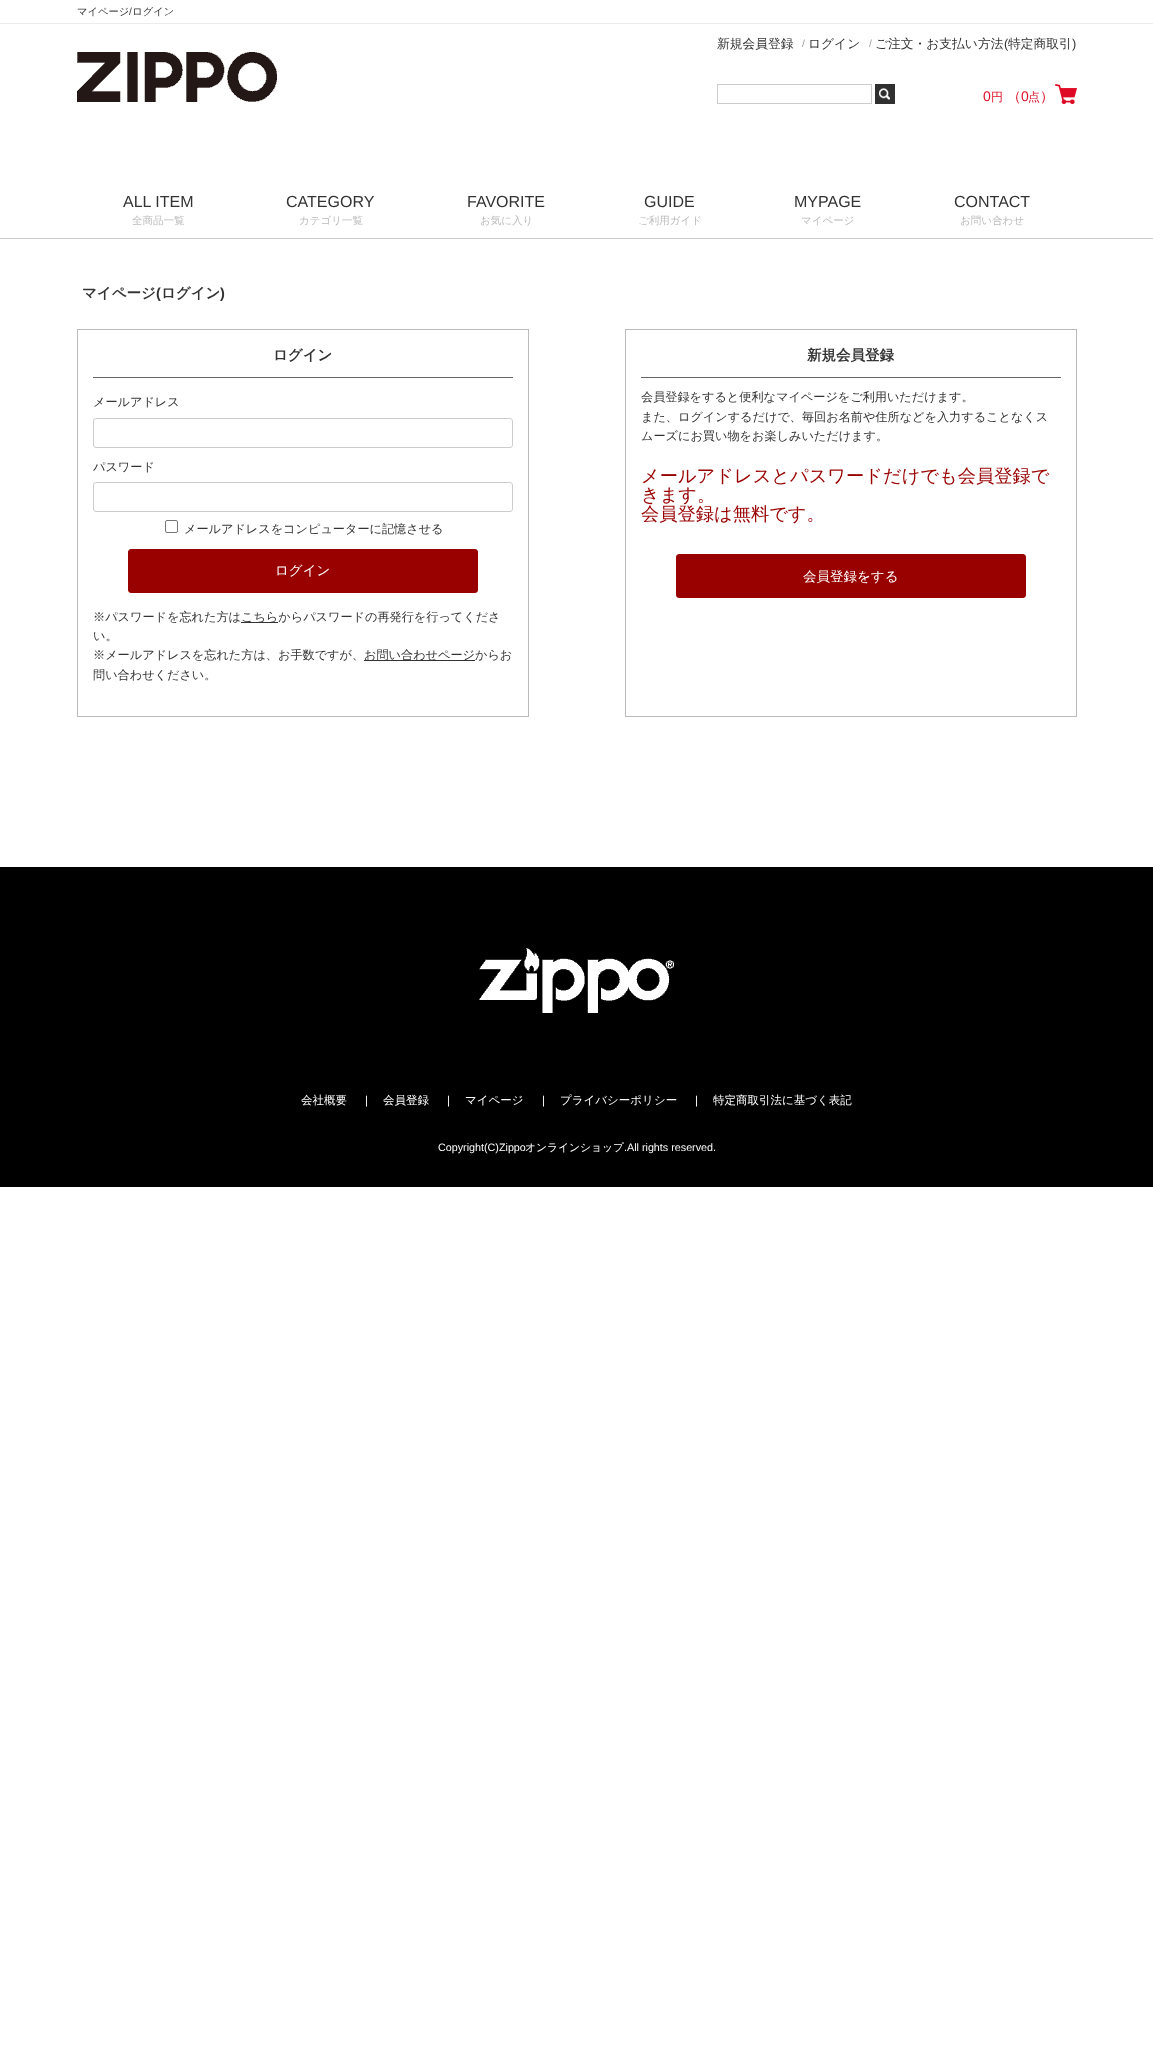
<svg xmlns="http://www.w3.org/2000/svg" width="1153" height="2067">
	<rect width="100%" height="100%" fill="#FFFFFF" />
	<rect x="0" y="23" width="1153" height="1" fill="#EDEBEB" />
	<text x="77" y="15" font-family="WenQuanYi Zen Hei" font-size="10.25" font-weight="500" fill="#333333">マイページ ログイン</text>
	<text x="129" y="15" font-family="Liberation Sans" font-size="10.25" fill="#333333">/</text>
	<image x="77" y="52" width="200" height="50" href="assets/img1.png" />
	<text x="717" y="48" font-family="WenQuanYi Zen Hei" font-size="12.75" font-weight="500" fill="#333333">新規会員登録</text>
	<text x="802" y="47" font-family="Liberation Sans" font-size="10.25" fill="#999999">/</text>
	<text x="808" y="48" font-family="WenQuanYi Zen Hei" font-size="12.75" font-weight="500" fill="#333333">ログイン</text>
	<text x="869" y="47" font-family="Liberation Sans" font-size="10.25" fill="#999999">/</text>
	<text x="875" y="48" font-family="WenQuanYi Zen Hei" font-size="12.75" font-weight="500" fill="#333333">ご注文・お支払い方法</text>
	<text x="1004" y="48" font-family="Liberation Sans" font-size="12.75" fill="#333333">(</text>
	<text x="1008" y="48" font-family="WenQuanYi Zen Hei" font-size="12.75" font-weight="500" fill="#333333">特定商取引</text>
	<text x="1072" y="48" font-family="Liberation Sans" font-size="12.75" fill="#333333">)</text>
	<rect x="717.5" y="84.5" width="154" height="19" fill="none" stroke="#CCCCCC" />
	<image x="875" y="84" width="20" height="20" href="assets/img2.png" />
	<text x="983" y="101" font-family="Liberation Sans" font-size="14" fill="#DD1229">0</text>
	<text x="991" y="101" font-family="WenQuanYi Zen Hei" font-size="12" font-weight="500" fill="#DD1229">円</text>
	<text x="1007" y="101" font-family="WenQuanYi Zen Hei" font-size="14" font-weight="500" fill="#DD1229">（</text>
	<text x="1021" y="101" font-family="Liberation Sans" font-size="14" fill="#DD1229">0</text>
	<text x="1028" y="101" font-family="WenQuanYi Zen Hei" font-size="12" font-weight="500" fill="#DD1229">点</text>
	<text x="1040" y="101" font-family="WenQuanYi Zen Hei" font-size="14" font-weight="500" fill="#DD1229">）</text>
	<image x="1055" y="84" width="22" height="20" href="assets/img3.png" />
	<rect x="0" y="238" width="1153" height="1" fill="#CCCCCC" />
	<text x="123" y="207" font-family="Liberation Sans" font-size="16" fill="#333333">ALL ITEM</text>
	<text x="132" y="224" font-family="WenQuanYi Zen Hei" font-size="10.5" font-weight="500" fill="#BBBBBB">全商品一覧</text>
	<text x="286" y="207" font-family="Liberation Sans" font-size="16" fill="#333333">CATEGORY</text>
	<text x="299" y="224" font-family="WenQuanYi Zen Hei" font-size="10.5" font-weight="500" fill="#BBBBBB">カテゴリ一覧</text>
	<text x="467" y="207" font-family="Liberation Sans" font-size="16" fill="#333333">FAVORITE</text>
	<text x="480" y="224" font-family="WenQuanYi Zen Hei" font-size="10.5" font-weight="500" fill="#BBBBBB">お気に入り</text>
	<text x="644" y="207" font-family="Liberation Sans" font-size="16" fill="#333333">GUIDE</text>
	<text x="638" y="224" font-family="WenQuanYi Zen Hei" font-size="10.5" font-weight="500" fill="#BBBBBB">ご利用ガイド</text>
	<text x="794" y="207" font-family="Liberation Sans" font-size="16" fill="#333333">MYPAGE</text>
	<text x="801" y="224" font-family="WenQuanYi Zen Hei" font-size="10.5" font-weight="500" fill="#BBBBBB">マイページ</text>
	<text x="954" y="207" font-family="Liberation Sans" font-size="16" fill="#333333">CONTACT</text>
	<text x="960" y="224" font-family="WenQuanYi Zen Hei" font-size="10.5" font-weight="500" fill="#BBBBBB">お問い合わせ</text>
	<text x="82" y="298" font-family="WenQuanYi Zen Hei" font-size="14.5" font-weight="700" fill="#333333">マイページ</text>
	<text x="156" y="298" font-family="Liberation Sans" font-size="14.5" font-weight="700" fill="#333333">(</text>
	<text x="161" y="298" font-family="WenQuanYi Zen Hei" font-size="14.5" font-weight="700" fill="#333333">ログイン</text>
	<text x="220" y="298" font-family="Liberation Sans" font-size="14.5" font-weight="700" fill="#333333">)</text>
	<rect x="77.5" y="329.5" width="451" height="387" fill="none" stroke="#BBBBBB" />
	<rect x="93" y="377" width="420" height="1" fill="#666666" />
	<text x="273" y="360" font-family="WenQuanYi Zen Hei" font-size="14.5" font-weight="700" fill="#333333">ログイン</text>
	<text x="93" y="406" font-family="WenQuanYi Zen Hei" font-size="12.15" font-weight="500" fill="#333333">メールアドレス</text>
	<rect x="93.5" y="418.5" width="419" height="29" rx="2.5" fill="none" stroke="#CCCCCC" />
	<text x="93" y="471" font-family="WenQuanYi Zen Hei" font-size="12.15" font-weight="500" fill="#333333">パスワード</text>
	<rect x="93.5" y="482.5" width="419" height="29" rx="2.5" fill="none" stroke="#CCCCCC" />
	<rect x="165.5" y="520.5" width="12" height="12" rx="1.5" fill="none" stroke="#767676" />
	<text x="184" y="533" font-family="WenQuanYi Zen Hei" font-size="12.15" font-weight="500" fill="#333333">メールアドレスをコンピューターに記憶させる</text>
	<rect x="128.5" y="549.5" width="349" height="43" rx="2.5" fill="#990000" stroke="#990000" />
	<text x="275" y="575" font-family="WenQuanYi Zen Hei" font-size="13.5" font-weight="500" fill="#FFFFFF">ログイン</text>
	<text x="93" y="621" font-family="WenQuanYi Zen Hei" font-size="12.15" font-weight="500" fill="#333333">※パスワードを忘れた方は</text>
	<rect x="241" y="622" width="37" height="1" fill="#333333" />
	<g font-family="WenQuanYi Zen Hei" font-size="12.15" font-weight="500" fill="#333333">
		<text x="241" y="621">こちらからパスワードの再発行を行ってくださ</text>
		<text x="93" y="640">い。</text>
		<text x="93" y="659">※メールアドレスを忘れた方は、お手数ですが、</text>
	</g>
	<rect x="364" y="660" width="111" height="1" fill="#333333" />
	<g font-family="WenQuanYi Zen Hei" font-size="12.15" font-weight="500" fill="#333333">
		<text x="364" y="659">お問い合わせページからお</text>
		<text x="93" y="679">問い合わせください。</text>
	</g>
	<rect x="625.5" y="329.5" width="451" height="387" fill="none" stroke="#BBBBBB" />
	<rect x="641" y="377" width="420" height="1" fill="#666666" />
	<text x="807" y="360" font-family="WenQuanYi Zen Hei" font-size="14.5" font-weight="700" fill="#333333">新規会員登録</text>
	<g font-family="WenQuanYi Zen Hei" font-size="12.15" font-weight="500" fill="#333333">
		<text x="641" y="401">会員登録をすると便利なマイページをご利用いただけます。</text>
		<text x="641" y="421">また、ログインするだけで、毎回お名前や住所などを入力することなくス</text>
		<text x="641" y="440">ムーズにお買い物をお楽しみいただけます。</text>
	</g>
	<g font-family="WenQuanYi Zen Hei" font-size="18.25" font-weight="500" fill="#990000">
		<text x="641" y="482">メールアドレスとパスワードだけでも会員登録で</text>
		<text x="641" y="501">きます。</text>
		<text x="641" y="520">会員登録は無料です。</text>
	</g>
	<rect x="676.5" y="554.5" width="349" height="43" rx="2.5" fill="#990000" stroke="#990000" />
	<text x="803" y="581" font-family="WenQuanYi Zen Hei" font-size="13.5" font-weight="500" fill="#FFFFFF">会員登録をする</text>
	<rect x="0" y="867" width="1153" height="320" fill="#000000" />
	<image x="479" y="948" width="195" height="65" href="assets/img4.png" />
	<text x="301" y="1104" font-family="WenQuanYi Zen Hei" font-size="11.5" font-weight="500" fill="#FFFFFF">会社概要</text>
	<text x="365" y="1104" font-family="Liberation Sans" font-size="11.5" fill="#FFFFFF">|</text>
	<text x="383" y="1104" font-family="WenQuanYi Zen Hei" font-size="11.5" font-weight="500" fill="#FFFFFF">会員登録</text>
	<text x="447" y="1104" font-family="Liberation Sans" font-size="11.5" fill="#FFFFFF">|</text>
	<text x="465" y="1104" font-family="WenQuanYi Zen Hei" font-size="11.5" font-weight="500" fill="#FFFFFF">マイページ</text>
	<text x="542" y="1104" font-family="Liberation Sans" font-size="11.5" fill="#FFFFFF">|</text>
	<text x="560" y="1104" font-family="WenQuanYi Zen Hei" font-size="11.5" font-weight="500" fill="#FFFFFF">プライバシーポリシー</text>
	<text x="695" y="1104" font-family="Liberation Sans" font-size="11.5" fill="#FFFFFF">|</text>
	<text x="713" y="1104" font-family="WenQuanYi Zen Hei" font-size="11.5" font-weight="500" fill="#FFFFFF">特定商取引法に基づく表記</text>
	<text x="438" y="1151" font-family="Liberation Sans" font-size="10.75" fill="#FFFFFF">Copyright(C)Zippo</text>
	<text x="525" y="1151" font-family="WenQuanYi Zen Hei" font-size="10.75" font-weight="500" fill="#FFFFFF">オンラインショップ</text>
	<text x="624" y="1151" font-family="Liberation Sans" font-size="10.75" fill="#FFFFFF">.All rights reserved.</text>
</svg>
